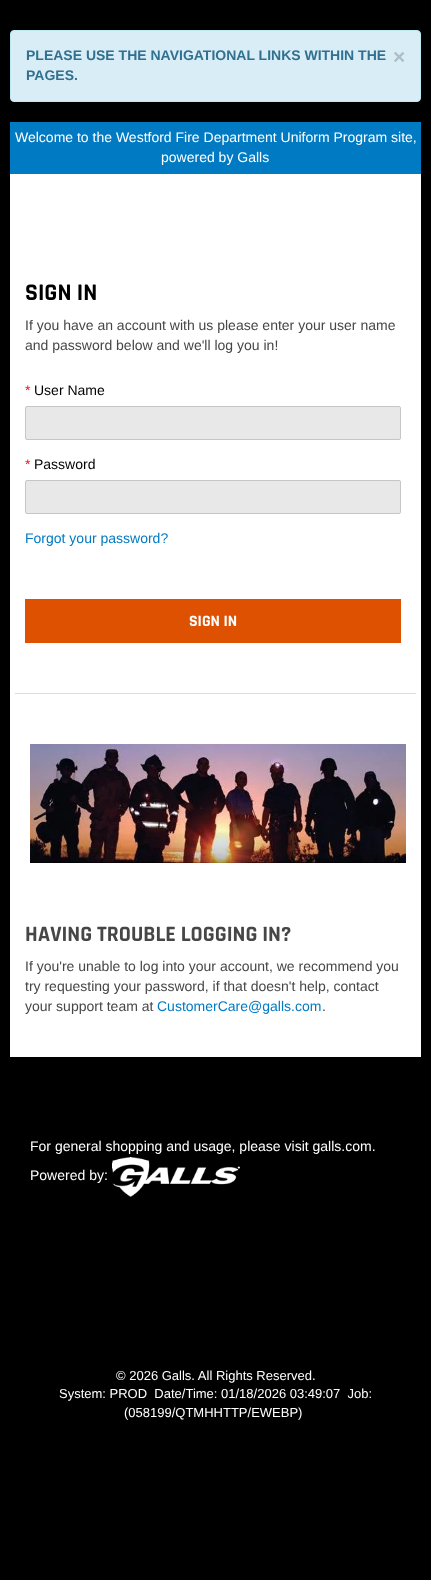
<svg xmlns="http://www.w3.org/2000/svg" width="431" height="1580">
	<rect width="100%" height="100%" fill="#000000" />
	<rect x="10.5" y="30.5" width="410" height="71" rx="3.5" fill="#D9EDF7" stroke="#BCE8F1" />
	<text x="26" y="60" font-family="Liberation Sans" font-size="14" font-weight="700" fill="#31708F">PLEASE USE THE NAVIGATIONAL LINKS WITHIN THE</text>
	<text x="393" y="64" font-family="Liberation Sans" font-size="21" font-weight="700" fill="#AEBEC6">×</text>
	<text x="26" y="80" font-family="Liberation Sans" font-size="14" font-weight="700" fill="#31708F">PAGES.</text>
	<rect x="10" y="122" width="411" height="52" fill="#007AC2" />
	<g font-family="Liberation Sans" font-size="14" fill="#FFFFFF">
		<text x="15" y="142">Welcome to the Westford Fire Department Uniform Program site,</text>
		<text x="161" y="162">powered by Galls</text>
	</g>
	<rect x="10" y="174" width="411" height="883" fill="#FFFFFF" />
	<rect x="15" y="693" width="401" height="1" fill="#DCDCDC" />
	<text x="25" y="300" font-family="Rajdhani" font-size="24" font-weight="700" fill="#000000">SIGN IN</text>
	<g font-family="Liberation Sans" font-size="14" fill="#464646">
		<text x="25" y="330">If you have an account with us please enter your user name</text>
		<text x="25" y="350">and password below and we'll log you in!</text>
	</g>
	<text x="25" y="395" font-family="Liberation Sans" font-size="14" fill="#FF0000">*</text>
	<text x="34" y="395" font-family="Liberation Sans" font-size="14" fill="#000000">User Name</text>
	<rect x="25.5" y="406.5" width="375" height="33" rx="1.5" fill="#E8E8E8" stroke="#C6C6C6" />
	<text x="25" y="469" font-family="Liberation Sans" font-size="14" fill="#FF0000">*</text>
	<text x="34" y="469" font-family="Liberation Sans" font-size="14" fill="#000000">Password</text>
	<rect x="25.5" y="480.5" width="375" height="33" rx="1.5" fill="#E8E8E8" stroke="#C6C6C6" />
	<text x="25" y="543" font-family="Liberation Sans" font-size="14" fill="#007AC2">Forgot your password?</text>
	<rect x="25" y="599" width="376" height="44" fill="#DE5101" />
	<text x="189" y="626" font-family="Rajdhani" font-size="16" font-weight="700" fill="#FFFFFF">SIGN IN</text>
	<image x="30" y="744" width="376" height="119" href="assets/img1.png" />
	<text x="25" y="941" font-family="Rajdhani" font-size="22" font-weight="700" fill="#464646">HAVING TROUBLE LOGGING IN?</text>
	<g font-family="Liberation Sans" font-size="14" fill="#464646">
		<text x="25" y="971">If you're unable to log into your account, we recommend you</text>
		<text x="25" y="991">try requesting your password, if that doesn't help, contact</text>
		<text x="25" y="1011">your support team at</text>
	</g>
	<text x="157" y="1011" font-family="Liberation Sans" font-size="14" fill="#007AC2">CustomerCare@galls.com</text>
	<text x="322" y="1011" font-family="Liberation Sans" font-size="14" fill="#464646">.</text>
	<g font-family="Liberation Sans" font-size="14" fill="#FFFFFF">
		<text x="30" y="1151">For general shopping and usage, please visit galls.com.</text>
		<text x="30" y="1180">Powered by:</text>
	</g>
	<image x="112" y="1157" width="128" height="40" href="assets/img2.png" />
	<g font-family="Liberation Sans" font-size="13" fill="#FFFFFF">
		<text x="116" y="1380">© 2026 Galls. All Rights Reserved.</text>
		<text x="59" y="1398" xml:space="preserve">System: PROD  Date/Time: 01/18/2026 03:49:07  Job:</text>
		<text x="124" y="1417">(058199/QTMHHTTP/EWEBP)</text>
	</g>
</svg>
